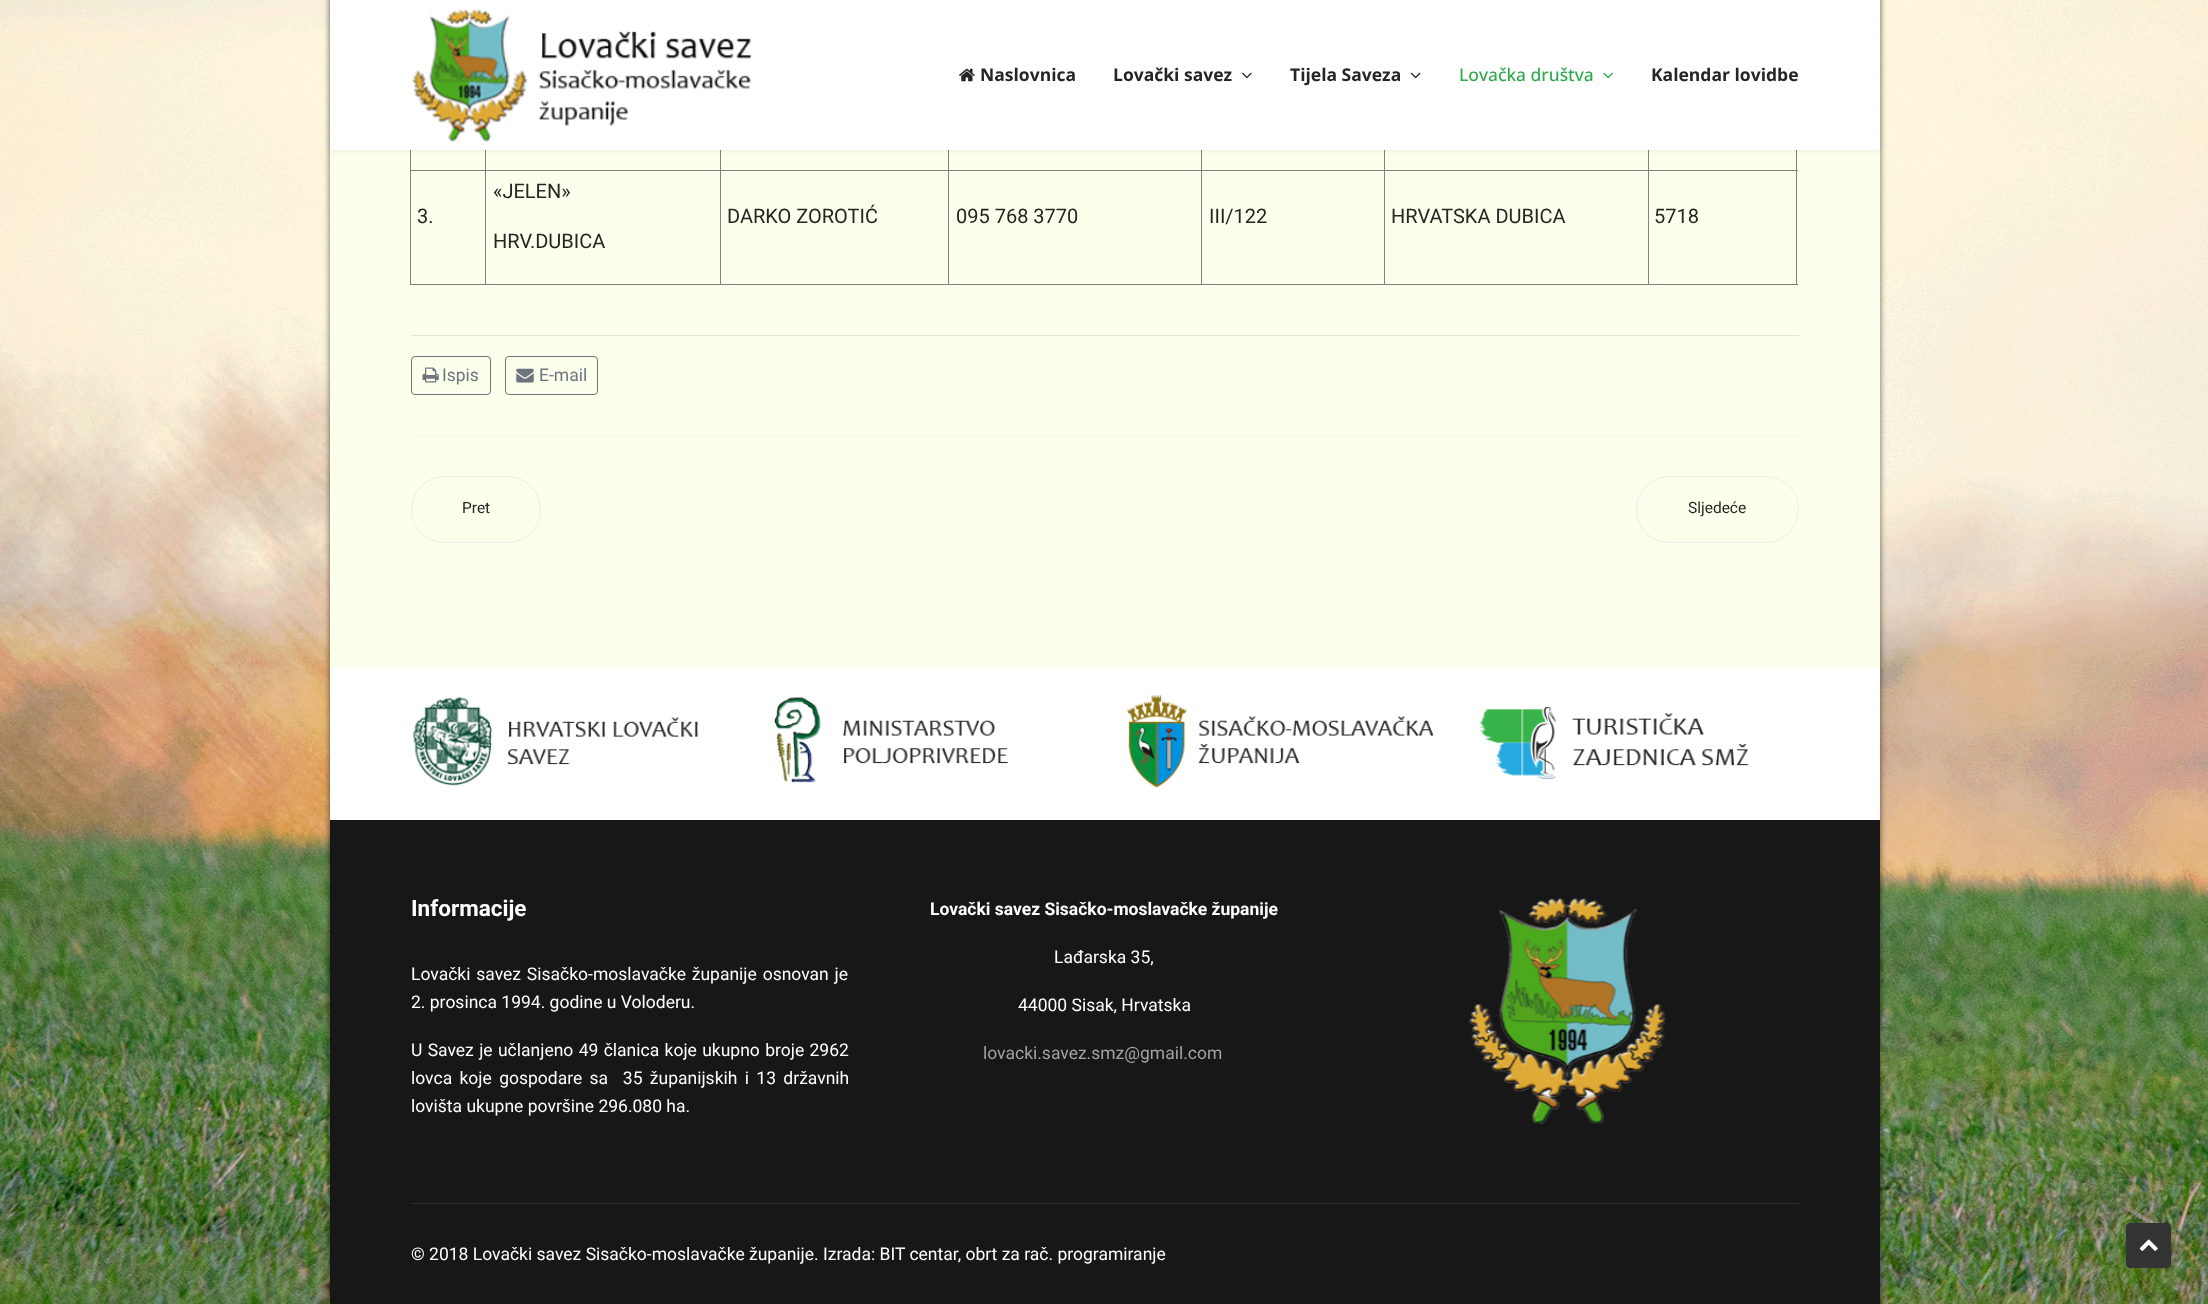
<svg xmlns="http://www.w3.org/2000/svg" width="2208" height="1304">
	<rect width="100%" height="100%" fill="#FFFFFF" />
	<image x="0" y="0" width="2208" height="1304" href="assets/img1.png" />
	<rect x="330" y="-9" width="1550" height="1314" fill="#000000" fill-opacity="0.6" filter="blur(3px)" />
	<rect x="330" y="668" width="1550" height="152" fill="#FFFFFF" />
	<rect x="330" y="150" width="1550" height="518" fill="#FCFFEB" />
	<rect x="1796" y="150" width="1" height="135" fill="#808080" />
	<rect x="410" y="284" width="1388" height="1" fill="#808080" />
	<rect x="410" y="150" width="1" height="135" fill="#808080" />
	<rect x="1648" y="170" width="150" height="1" fill="#808080" />
	<rect x="1648" y="170" width="1" height="115" fill="#808080" />
	<rect x="1384" y="170" width="265" height="1" fill="#808080" />
	<rect x="1384" y="170" width="1" height="115" fill="#808080" />
	<rect x="1201" y="170" width="184" height="1" fill="#808080" />
	<rect x="1201" y="170" width="1" height="115" fill="#808080" />
	<rect x="948" y="170" width="255" height="1" fill="#808080" />
	<rect x="948" y="170" width="1" height="115" fill="#808080" />
	<rect x="720" y="170" width="229" height="1" fill="#808080" />
	<rect x="720" y="170" width="1" height="115" fill="#808080" />
	<rect x="485" y="170" width="236" height="1" fill="#808080" />
	<rect x="485" y="170" width="1" height="115" fill="#808080" />
	<rect x="410" y="170" width="76" height="1" fill="#808080" />
	<rect x="485" y="150" width="1" height="21" fill="#808080" />
	<rect x="720" y="150" width="1" height="21" fill="#808080" />
	<rect x="948" y="150" width="1" height="21" fill="#808080" />
	<rect x="1201" y="150" width="1" height="21" fill="#808080" />
	<rect x="1384" y="150" width="1" height="21" fill="#808080" />
	<rect x="1648" y="150" width="1" height="21" fill="#808080" />
	<rect x="330" y="0" width="1550" height="150" fill="#000000" fill-opacity="0.1" filter="blur(2.5px)" />
	<rect x="330" y="0" width="1550" height="150" fill="#FFFFFF" />
	<image x="412" y="9" width="340" height="133" href="assets/img2.png" />
	<image x="959" y="68" width="16" height="14" href="assets/img3.png" />
	<g font-family="Open Sans" font-size="17.5" font-weight="700" fill="#252525">
		<text x="980" y="81">Naslovnica</text>
		<text x="1113" y="81">Lovački savez</text>
	</g>
	<image x="1242" y="72" width="10" height="7" href="assets/img4.png" />
	<text x="1290" y="81" font-family="Open Sans" font-size="17.5" font-weight="700" fill="#252525">Tijela Saveza</text>
	<image x="1410" y="72" width="11" height="7" href="assets/img5.png" />
	<text x="1459" y="81" font-family="Open Sans" font-size="17.5" font-weight="500" fill="#2BA84A">Lovačka društva</text>
	<image x="1603" y="72" width="10" height="7" href="assets/img6.png" />
	<text x="1651" y="81" font-family="Open Sans" font-size="17.5" font-weight="700" fill="#252525">Kalendar lovidbe</text>
	<g font-family="Roboto" font-size="20" fill="#252525">
		<text x="417" y="223">3.</text>
		<text x="493" y="198">«JELEN»</text>
		<text x="493" y="248">HRV.DUBICA</text>
		<text x="727" y="223">DARKO ZOROTIĆ</text>
		<text x="956" y="223">095 768 3770</text>
		<text x="1209" y="223">III/122</text>
		<text x="1391" y="223">HRVATSKA DUBICA</text>
		<text x="1654" y="223">5718</text>
	</g>
	<rect x="411" y="335" width="1388" height="1" fill="#E3E6D4" />
	<rect x="411.5" y="356.5" width="79" height="38" rx="3.5" fill="none" stroke="#6C757D" />
	<image x="422" y="367" width="17" height="16" href="assets/img7.png" />
	<text x="442" y="381" font-family="Roboto" font-size="17.5" fill="#6C757D">Ispis</text>
	<rect x="505.5" y="356.5" width="92" height="38" rx="3.5" fill="none" stroke="#6C757D" />
	<image x="516" y="368" width="18" height="15" href="assets/img8.png" />
	<text x="539" y="381" font-family="Roboto" font-size="17.5" fill="#6C757D">E-mail</text>
	<rect x="411" y="435" width="1388" height="1" fill="#F5F5F5" />
	<rect x="411.5" y="476.5" width="129" height="66" rx="33" fill="none" stroke="#EDEDED" />
	<text x="462" y="513" font-family="Roboto" font-size="15.5" fill="#252525">Pret</text>
	<rect x="1636.5" y="476.5" width="162" height="66" rx="33" fill="none" stroke="#EDEDED" />
	<text x="1688" y="513" font-family="Roboto" font-size="15.5" fill="#252525">Sljedeće</text>
	<image x="413" y="697" width="286" height="89" href="assets/img9.png" />
	<image x="773" y="697" width="235" height="86" href="assets/img10.png" />
	<image x="1126" y="695" width="308" height="93" href="assets/img11.png" />
	<image x="1480" y="707" width="269" height="72" href="assets/img12.png" />
	<rect x="330" y="820" width="1550" height="484" fill="#171717" />
	<text x="411" y="916" font-family="Roboto" font-size="22.5" font-weight="700" fill="#FFFFFF">Informacije</text>
	<g font-family="Roboto" font-size="17.5" fill="#FFFFFF">
		<text x="411" y="980" word-spacing="1.5">Lovački savez Sisačko-moslavačke županije osnovan je</text>
		<text x="411" y="1008">2. prosinca 1994. godine u Voloderu.</text>
		<text x="411" y="1056" word-spacing="1">U Savez je učlanjeno 49 članica koje ukupno broje 2962</text>
		<text x="411" y="1084" word-spacing="3" xml:space="preserve">lovca koje gospodare sa  35 županijskih i 13 državnih</text>
		<text x="411" y="1112">lovišta ukupne površine 296.080 ha.</text>
	</g>
	<text x="930" y="915" font-family="Roboto" font-size="17.5" font-weight="700" fill="#FFFFFF">Lovački savez Sisačko-moslavačke županije</text>
	<g font-family="Roboto" font-size="17.5" fill="#FFFFFF">
		<text x="1054" y="963">Lađarska 35,</text>
		<text x="1018" y="1011">44000 Sisak, Hrvatska</text>
	</g>
	<text x="983" y="1059" font-family="Roboto" font-size="17.5" fill="#A2A2A2">lovacki.savez.smz@gmail.com</text>
	<image x="1469" y="898" width="197" height="226" href="assets/img13.png" />
	<rect x="411" y="1203" width="1388" height="1" fill="#2E2E2E" />
	<text x="411" y="1260" font-family="Roboto" font-size="17.5" fill="#FFFFFF">© 2018 Lovački savez Sisačko-moslavačke županije. Izrada: BIT centar, obrt za rač. programiranje</text>
	<rect x="2126" y="1223" width="45" height="45" rx="4" fill="#333333" />
	<image x="2139" y="1239" width="19" height="12" href="assets/img14.png" />
</svg>
